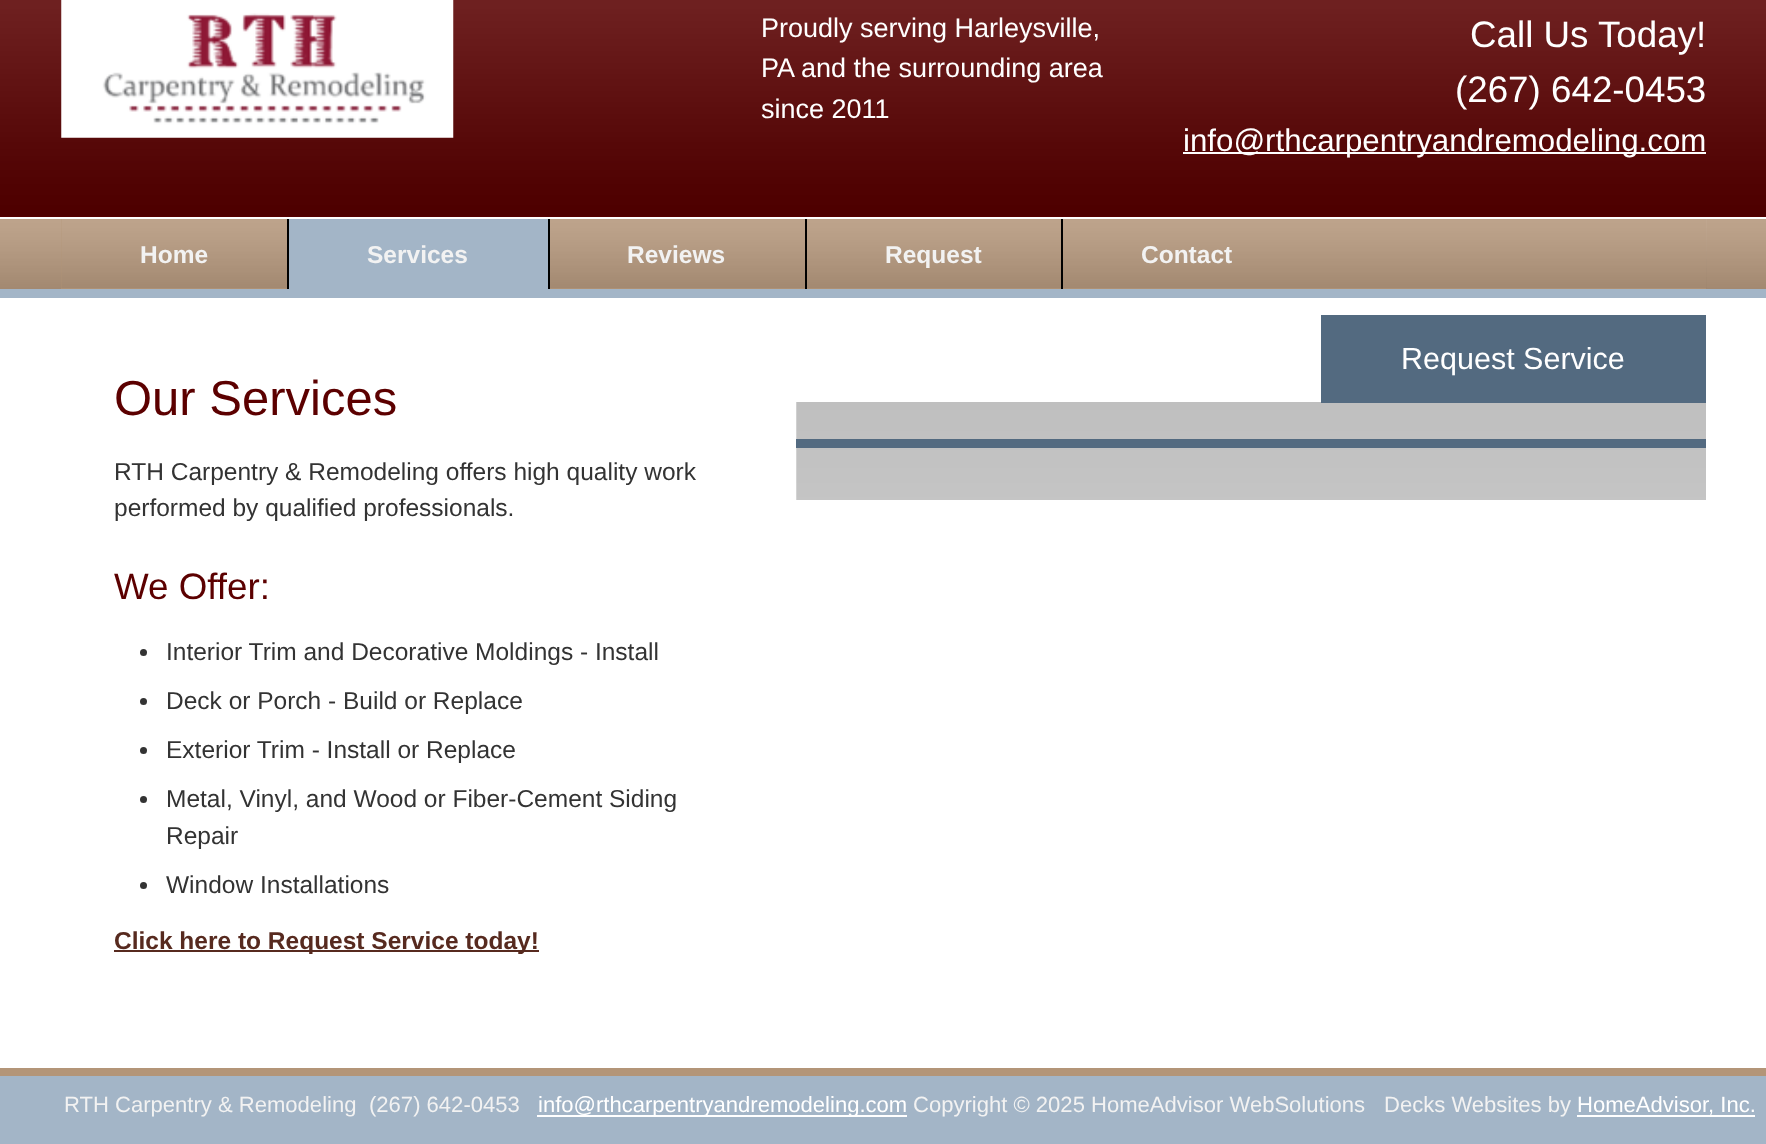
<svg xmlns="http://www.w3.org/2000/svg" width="1766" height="1144">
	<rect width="100%" height="100%" fill="#FFFFFF" />
	<rect x="0" y="0" width="1766" height="217" fill="#5C0000" />
	<image x="0" y="0" width="1766" height="217" href="assets/img1.png" />
	<image x="61" y="0" width="393" height="138" href="assets/img2.png" />
	<g font-family="Liberation Sans" font-size="27" fill="#FFFFFF">
		<text x="761" y="37">Proudly serving Harleysville,</text>
		<text x="761" y="77">PA and the surrounding area</text>
		<text x="761" y="118">since 2011</text>
	</g>
	<g font-family="Liberation Sans" font-size="36.75" fill="#FFFFFF">
		<text x="1470" y="47">Call Us Today!</text>
		<text x="1455" y="102">(267) 642-0453</text>
	</g>
	<rect x="1183" y="152" width="523" height="2" fill="#FFFFFF" />
	<text x="1183" y="151" font-family="Liberation Sans" font-size="31.25" fill="#FFFFFF">info@rthcarpentryandremodeling.com</text>
	<rect x="0" y="219" width="1766" height="70" fill="#B39578" />
	<image x="0" y="219" width="1766" height="70" href="assets/img3.png" />
	<rect x="0" y="289" width="1766" height="9" fill="#A3B5C7" />
	<rect x="61" y="219" width="1645" height="70" fill="#B39578" />
	<image x="61" y="219" width="1646" height="70" href="assets/img4.png" />
	<rect x="287" y="219" width="2" height="70" fill="#000000" />
	<text x="140" y="263" font-family="Liberation Sans" font-size="24.5" font-weight="700" fill="#F2F2F2">Home</text>
	<rect x="289" y="219" width="259" height="70" fill="#A3B5C7" />
	<rect x="548" y="219" width="2" height="70" fill="#000000" />
	<text x="367" y="263" font-family="Liberation Sans" font-size="24.5" font-weight="700" fill="#F2F2F2">Services</text>
	<rect x="805" y="219" width="2" height="70" fill="#000000" />
	<text x="627" y="263" font-family="Liberation Sans" font-size="24.5" font-weight="700" fill="#F2F2F2">Reviews</text>
	<rect x="1061" y="219" width="2" height="70" fill="#000000" />
	<g font-family="Liberation Sans" font-size="24.5" font-weight="700" fill="#F2F2F2">
		<text x="885" y="263">Request</text>
		<text x="1141" y="263">Contact</text>
	</g>
	<image x="796" y="402" width="910" height="98" href="assets/img5.png" />
	<rect x="1321" y="315" width="385" height="88" fill="#536A80" />
	<text x="1401" y="369" font-family="Liberation Sans" font-size="30.5" fill="#FFFFFF">Request Service</text>
	<rect x="796" y="439" width="910" height="9" fill="#536A80" />
	<text x="114" y="415" font-family="Liberation Sans" font-size="49" fill="#5C0000">Our Services</text>
	<g font-family="Liberation Sans" font-size="24.5" fill="#333333">
		<text x="114" y="480">RTH Carpentry &amp; Remodeling offers high quality work</text>
		<text x="114" y="516">performed by qualified professionals.</text>
	</g>
	<text x="114" y="599" font-family="Liberation Sans" font-size="36.75" fill="#5C0000">We Offer:</text>
	<circle cx="143.5" cy="652.5" r="3.5" fill="#333333" />
	<text x="166" y="660" font-family="Liberation Sans" font-size="24.5" fill="#333333">Interior Trim and Decorative Moldings - Install</text>
	<circle cx="143.5" cy="701.5" r="3.5" fill="#333333" />
	<text x="166" y="709" font-family="Liberation Sans" font-size="24.5" fill="#333333">Deck or Porch - Build or Replace</text>
	<circle cx="143.5" cy="750.5" r="3.5" fill="#333333" />
	<text x="166" y="758" font-family="Liberation Sans" font-size="24.5" fill="#333333">Exterior Trim - Install or Replace</text>
	<circle cx="143.5" cy="799.5" r="3.5" fill="#333333" />
	<g font-family="Liberation Sans" font-size="24.5" fill="#333333">
		<text x="166" y="807">Metal, Vinyl, and Wood or Fiber-Cement Siding</text>
		<text x="166" y="844">Repair</text>
	</g>
	<circle cx="143.5" cy="885.5" r="3.5" fill="#333333" />
	<text x="166" y="893" font-family="Liberation Sans" font-size="24.5" fill="#333333">Window Installations</text>
	<rect x="114" y="950" width="425" height="2" fill="#572A1F" />
	<text x="114" y="949" font-family="Liberation Sans" font-size="24.5" font-weight="700" fill="#572A1F">Click here to Request Service today!</text>
	<rect x="0" y="1076" width="1766" height="68" fill="#A3B5C7" />
	<rect x="0" y="1068" width="1766" height="8" fill="#B39578" />
	<g font-family="Liberation Sans" font-size="22.05" fill="#F2F2F2">
		<text x="64" y="1112">RTH Carpentry &amp; Remodeling</text>
		<text x="369" y="1112">(267) 642-0453</text>
	</g>
	<rect x="537" y="1115" width="370" height="2" fill="#FFFFFF" />
	<text x="538" y="1112" font-family="Liberation Sans" font-size="22.05" fill="#FFFFFF">info@rthcarpentryandremodeling.com</text>
	<g font-family="Liberation Sans" font-size="22.05" fill="#F2F2F2">
		<text x="913" y="1112">Copyright © 2025 HomeAdvisor WebSolutions</text>
		<text x="1384" y="1112">Decks Websites by</text>
	</g>
	<text x="1577" y="1112" font-family="Liberation Sans" font-size="22.05" fill="#FFFFFF">HomeAdvisor, Inc.</text>
	<rect x="1577" y="1115" width="178" height="2" fill="#FFFFFF" />
</svg>
